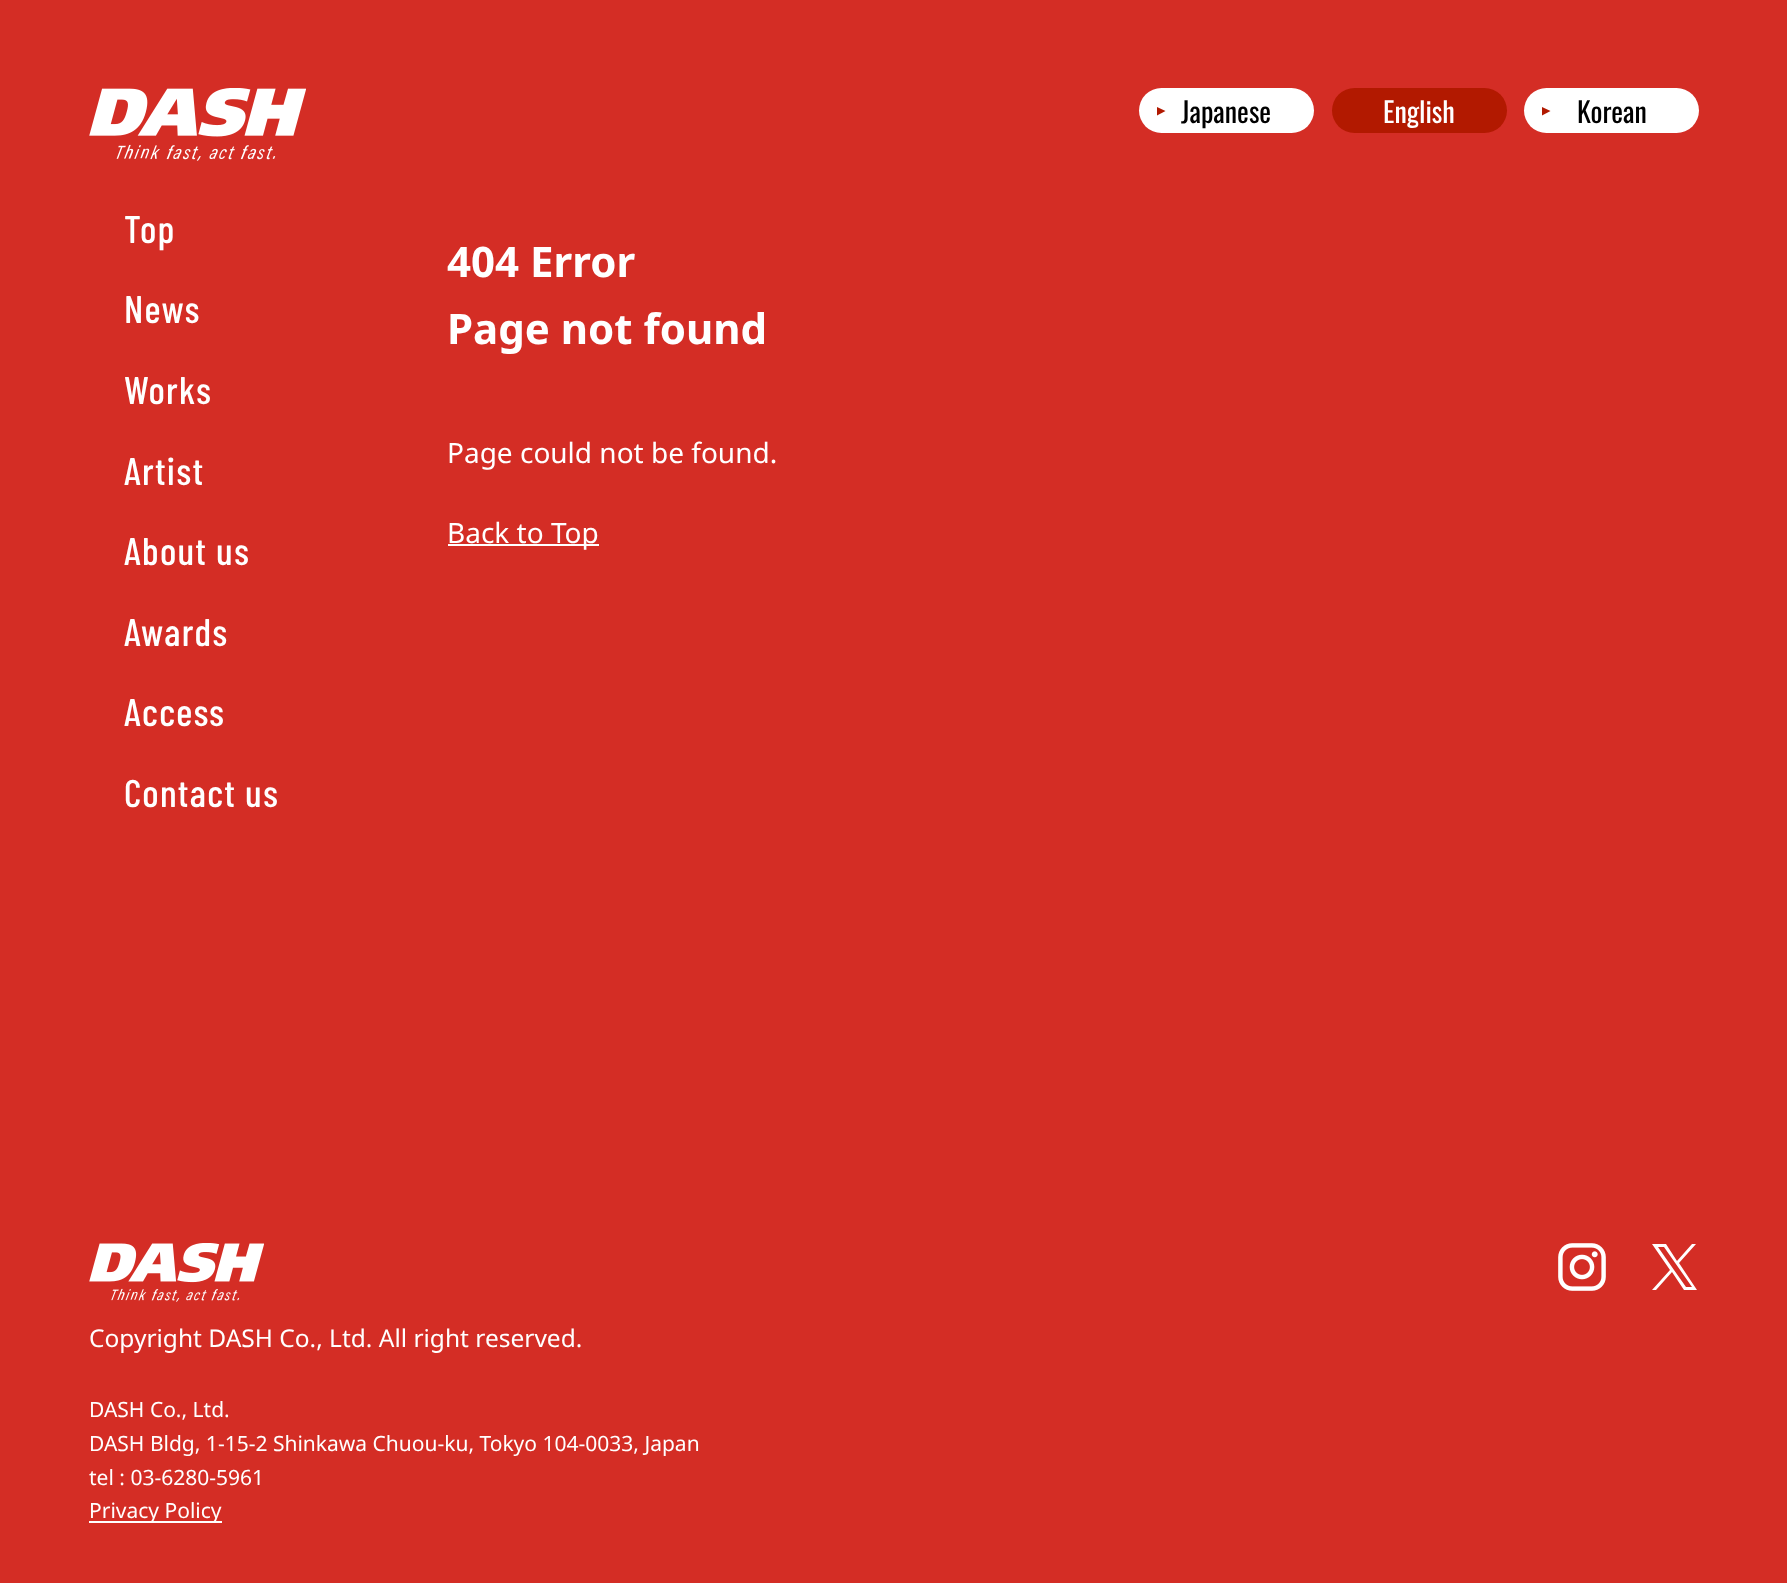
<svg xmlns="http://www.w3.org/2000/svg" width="1787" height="1583">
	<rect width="100%" height="100%" fill="#D42D25" />
	<rect x="1139" y="88" width="175" height="45" rx="22.5" fill="#FFFFFF" />
	<path d="M1165.5 111L1157 115.5V107Z" fill="#B11900" />
	<text x="1181" y="123" font-family="Oswald" font-size="28" fill="#000000">Japanese</text>
	<rect x="1332" y="88" width="175" height="45" rx="22.5" fill="#B21900" />
	<text x="1383" y="123" font-family="Oswald" font-size="28" fill="#FFFFFF">English</text>
	<rect x="1524" y="88" width="175" height="45" rx="22.5" fill="#FFFFFF" />
	<path d="M1550.5 111L1542 115.5V107Z" fill="#B11900" />
	<text x="1577" y="123" font-family="Oswald" font-size="28" fill="#000000">Korean</text>
	<image x="89" y="88" width="217" height="73" href="assets/img1.png" />
	<g font-family="Barlow Condensed" font-size="38.5" font-weight="500" letter-spacing="1.25" fill="#FFFFFF">
		<text x="124" y="243">Top</text>
		<text x="124" y="323">News</text>
		<text x="124" y="404">Works</text>
		<text x="124" y="485">Artist</text>
		<text x="124" y="565">About us</text>
		<text x="124" y="646">Awards</text>
		<text x="124" y="726">Access</text>
		<text x="124" y="807">Contact us</text>
	</g>
	<g font-family="Noto Sans" font-size="42" font-weight="700" fill="#FFFFFF">
		<text x="447" y="277">404 Error</text>
		<text x="447" y="344">Page not found</text>
	</g>
	<text x="447" y="463" font-family="Noto Sans" font-size="28" fill="#FFFFFF">Page could not be found.</text>
	<rect x="448" y="544" width="151" height="2" fill="#FFFFFF" />
	<text x="447" y="543" font-family="Noto Sans" font-size="28" fill="#FFFFFF">Back to Top</text>
	<image x="89" y="1243" width="175" height="59" href="assets/img2.png" />
	<image x="1558" y="1243" width="48" height="48" href="assets/img3.png" />
	<path d="M1674 1270L1658 1247H1664L1692 1287H1686ZM1692 1244L1677 1261L1666 1244H1652L1670 1270L1652 1290H1656L1672 1272L1684 1290H1697L1679 1263L1696 1244Z" fill="#FFFFFF" />
	<text x="89" y="1347" font-family="Noto Sans" font-size="24.5" fill="#FFFFFF">Copyright DASH Co., Ltd. All right reserved.</text>
	<g font-family="Noto Sans" font-size="21" fill="#FFFFFF">
		<text x="89" y="1417">DASH Co., Ltd.</text>
		<text x="89" y="1451">DASH Bldg, 1-15-2 Shinkawa Chuou-ku, Tokyo 104-0033, Japan</text>
		<text x="89" y="1485">tel : 03-6280-5961</text>
	</g>
	<rect x="89" y="1521" width="133" height="2" fill="#FFFFFF" />
	<text x="89" y="1518" font-family="Noto Sans" font-size="21" fill="#FFFFFF">Privacy Policy</text>
</svg>
